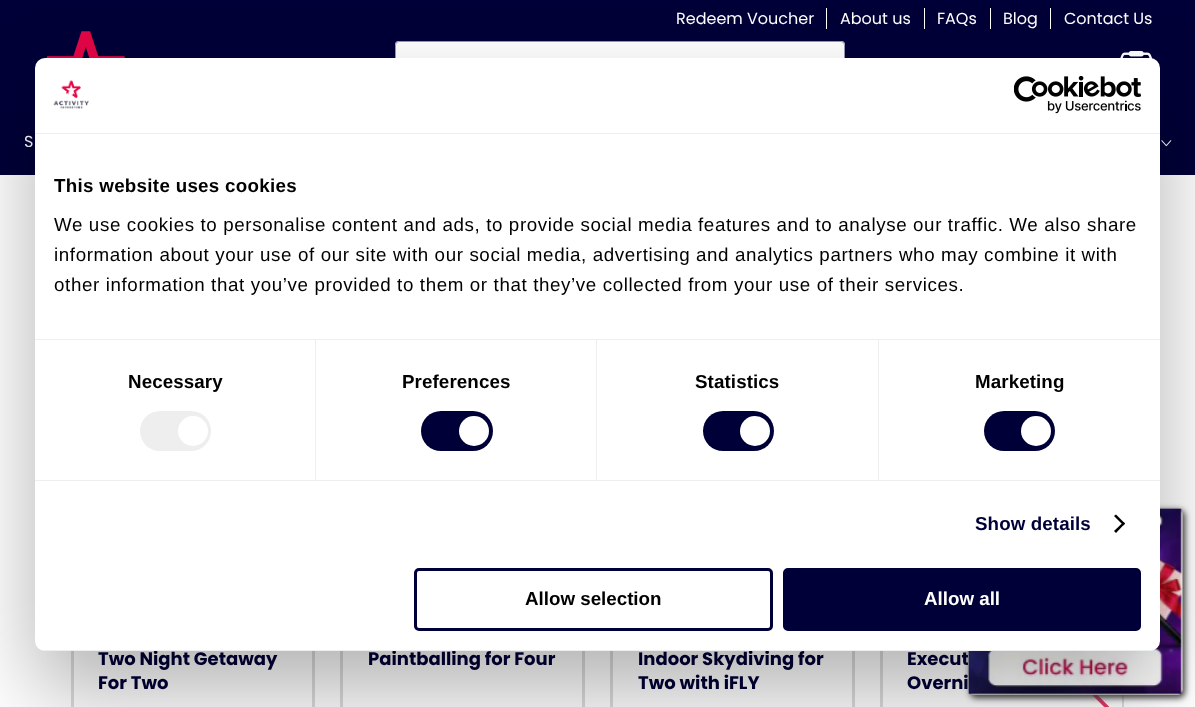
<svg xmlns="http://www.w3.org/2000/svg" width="1195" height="707">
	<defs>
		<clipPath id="clip1"><rect x="71" y="473" width="1053" height="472" /></clipPath>
		<clipPath id="clip2"><rect x="35" y="58" width="1125" height="593" rx="10" /></clipPath>
	</defs>
	<rect width="100%" height="100%" fill="#FFFFFF" />
	<rect x="0" y="0" width="1195" height="175" fill="#000038" />
	<text x="676" y="24" font-family="Poppins" font-size="16" fill="#FFFFFF">Redeem Voucher</text>
	<rect x="826" y="8" width="1" height="21" fill="#FFFFFF" />
	<text x="840" y="24" font-family="Poppins" font-size="16" fill="#FFFFFF">About us</text>
	<rect x="924" y="8" width="1" height="21" fill="#FFFFFF" />
	<text x="937" y="24" font-family="Poppins" font-size="16" fill="#FFFFFF">FAQs</text>
	<rect x="990" y="8" width="1" height="21" fill="#FFFFFF" />
	<text x="1003" y="24" font-family="Poppins" font-size="16" fill="#FFFFFF">Blog</text>
	<rect x="1050" y="8" width="1" height="21" fill="#FFFFFF" />
	<text x="1064" y="24" font-family="Poppins" font-size="16" fill="#FFFFFF">Contact Us</text>
	<image x="46" y="31" width="79" height="27" href="assets/img1.png" />
	<rect x="395" y="41" width="450" height="58" rx="4" fill="#FFFFFF" />
	<rect x="395.5" y="41.5" width="449" height="57" rx="3.5" fill="none" stroke="#807EA3" stroke-opacity="0.8" />
	<image x="1120" y="51" width="33" height="8" href="assets/img2.png" />
	<text x="24" y="147" font-family="Poppins" font-size="16" fill="#FFFFFF">S</text>
	<image x="1161" y="140" width="11" height="7" href="assets/img3.png" />
	<rect x="72.5" y="474.5" width="241" height="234" fill="none" stroke="#DCDCDC" stroke-width="3" />
	<g font-family="Poppins" font-size="18" font-weight="700" fill="#000038">
		<text x="98" y="665">Two Night Getaway</text>
		<text x="98" y="689">For Two</text>
	</g>
	<rect x="341.5" y="474.5" width="242" height="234" fill="none" stroke="#DCDCDC" stroke-width="3" />
	<text x="368" y="665" font-family="Poppins" font-size="18" font-weight="700" fill="#000038">Paintballing for Four</text>
	<rect x="611.5" y="474.5" width="242" height="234" fill="none" stroke="#DCDCDC" stroke-width="3" />
	<g font-family="Poppins" font-size="18" font-weight="700" fill="#000038">
		<text x="638" y="665">Indoor Skydiving for</text>
		<text x="638" y="689">Two with iFLY</text>
	</g>
	<g clip-path="url(#clip1)">
		<rect x="881.5" y="474.5" width="242" height="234" fill="none" stroke="#DCDCDC" stroke-width="3" />
	</g>
	<g font-family="Poppins" font-size="18" font-weight="700" fill="#000038">
		<text x="907" y="665">Execut</text>
		<text x="907" y="689">Overni</text>
	</g>
	<image x="1092" y="695" width="17" height="12" href="assets/img4.png" />
	<rect x="970" y="510" width="215" height="188" rx="6" fill="#404040" filter="blur(3px)" />
	<rect x="968.5" y="508.5" width="214" height="186" rx="5.5" fill="#FFFFFF" stroke="#B8B8B8" />
	<image x="968" y="508" width="214" height="186" href="assets/img7.png" />
	<rect x="35" y="98" width="1125" height="593" rx="10" fill="#000000" fill-opacity="0.3" filter="blur(42.5px)" />
	<rect x="35" y="58" width="1125" height="593" rx="10" fill="#FFFFFF" />
	<rect x="35" y="133" width="1125" height="1" fill="#EEEEEE" />
	<image x="53" y="80" width="36" height="29" href="assets/img5.png" />
	<image x="1014" y="76" width="127" height="38" href="assets/img6.png" />
	<rect x="35" y="339" width="1125" height="1" fill="#EEEEEE" />
	<text x="54" y="192" font-family="Liberation Sans" font-size="18.75" font-weight="700" letter-spacing="0.3" fill="#000000">This website uses cookies</text>
	<g font-family="Liberation Sans" font-size="18.75" letter-spacing="0.62" fill="#000000">
		<text x="54" y="231">We use cookies to personalise content and ads, to provide social media features and to analyse our traffic. We also share</text>
		<text x="54" y="261">information about your use of our site with our social media, advertising and analytics partners who may combine it with</text>
		<text x="54" y="291">other information that you’ve provided to them or that they’ve collected from your use of their services.</text>
	</g>
	<rect x="35" y="480" width="1125" height="1" fill="#EEEEEE" />
	<rect x="315" y="340" width="1" height="140" fill="#EEEEEE" />
	<text x="128" y="388" font-family="Liberation Sans" font-size="18.75" font-weight="700" letter-spacing="0.1" fill="#000000">Necessary</text>
	<rect x="140" y="411" width="71" height="40" rx="20" fill="#EEEEEE" />
	<circle cx="193" cy="431" r="15" fill="#FFFFFF" />
	<rect x="596" y="340" width="1" height="140" fill="#EEEEEE" />
	<text x="402" y="388" font-family="Liberation Sans" font-size="18.75" font-weight="700" letter-spacing="0.1" fill="#000000">Preferences</text>
	<rect x="421" y="411" width="72" height="40" rx="20" fill="#000038" />
	<circle cx="474" cy="431" r="15" fill="#FFFFFF" />
	<rect x="878" y="340" width="1" height="140" fill="#EEEEEE" />
	<text x="695" y="388" font-family="Liberation Sans" font-size="18.75" font-weight="700" letter-spacing="0.1" fill="#000000">Statistics</text>
	<rect x="703" y="411" width="71" height="40" rx="20" fill="#000038" />
	<circle cx="755" cy="431" r="15" fill="#FFFFFF" />
	<text x="975" y="388" font-family="Liberation Sans" font-size="18.75" font-weight="700" letter-spacing="0.1" fill="#000000">Marketing</text>
	<rect x="984" y="411" width="71" height="40" rx="20" fill="#000038" />
	<circle cx="1036" cy="431" r="15" fill="#FFFFFF" />
	<text x="975" y="530" font-family="Liberation Sans" font-size="18.75" font-weight="700" letter-spacing="0.1" fill="#000038">Show details</text>
	<path d="M1116 514.5L1125 523.5L1123.5 525.5L1114 516Z" fill="#000000" />
	<path d="M1123.5 522L1125 523.5L1116 533L1114 531Z" fill="#000000" />
	<g clip-path="url(#clip2)">
		<rect x="35" y="650" width="1125" height="1" fill="#EEEEEE" />
	</g>
	<rect x="415.5" y="569.5" width="356" height="60" rx="3.5" fill="none" stroke="#000038" stroke-width="3" />
	<text x="525" y="605" font-family="Liberation Sans" font-size="18.75" font-weight="700" fill="#000000">Allow selection</text>
	<rect x="784.5" y="569.5" width="355" height="60" rx="3.5" fill="#000038" stroke="#000038" stroke-width="3" />
	<text x="924" y="605" font-family="Liberation Sans" font-size="18.75" font-weight="700" fill="#FFFFFF">Allow all</text>
</svg>
